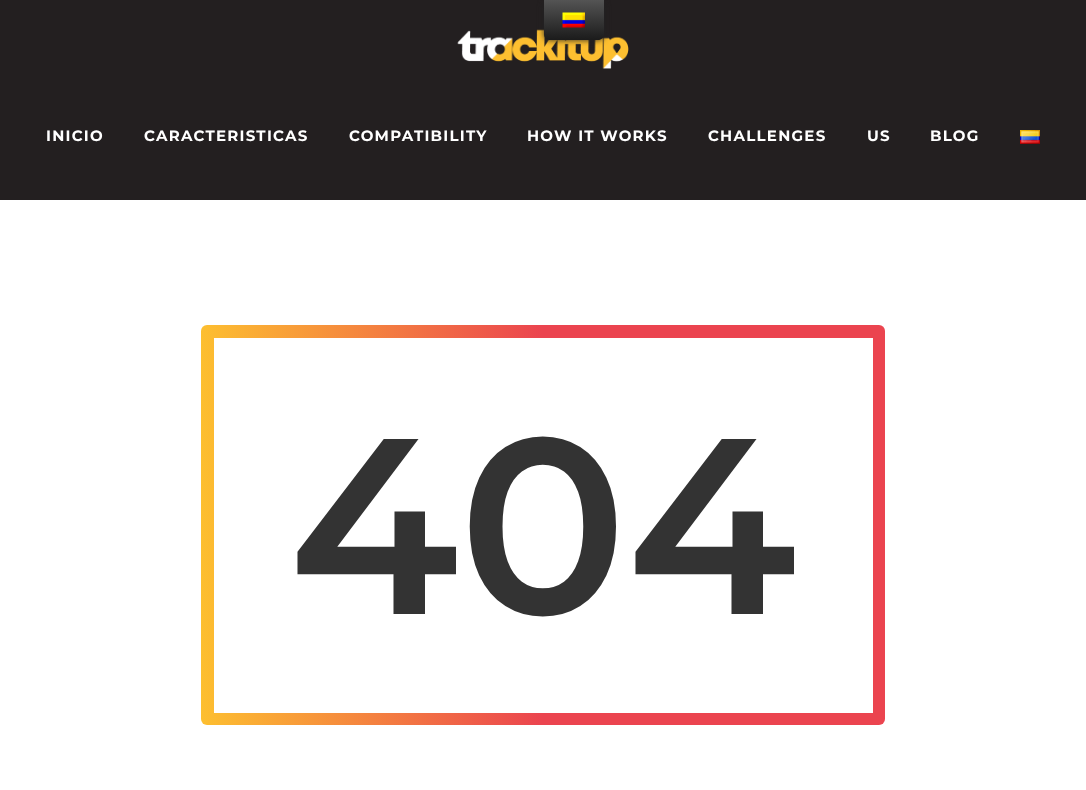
<svg xmlns="http://www.w3.org/2000/svg" width="1086" height="790">
	<defs>
		<linearGradient id="g1" gradientUnits="userSpaceOnUse" x1="574" y1="40" x2="574" y2="0"><stop offset="0" stop-color="#1B1B1B" /><stop offset="1" stop-color="#545454" /></linearGradient>
		<linearGradient id="g2" gradientUnits="userSpaceOnUse" x1="201" y1="525" x2="885" y2="525"><stop offset="0" stop-color="#FDBF30" /><stop offset="0.5" stop-color="#EB444F" /><stop offset="1" stop-color="#EB444F" /></linearGradient>
	</defs>
	<rect width="100%" height="100%" fill="#FFFFFF" />
	<rect x="0" y="0" width="1086" height="200" fill="#231F20" />
	<image x="457" y="29" width="172" height="40" href="assets/img2.png" />
	<rect x="544" y="0" width="60" height="40" rx="6" fill="#212121" filter="blur(3px)" />
	<path d="M544 0H604V34C604 37.5 601.5 40 598 40H550C546.5 40 544 37.5 544 34Z" fill="url(#g1)" />
	<image x="562" y="12" width="23" height="16" href="assets/img1.png" />
	<g font-family="Montserrat" font-size="15" font-weight="700" letter-spacing="1.25" fill="#FFFFFF">
		<text x="46" y="141">INICIO</text>
		<text x="144" y="141">CARACTERISTICAS</text>
		<text x="349" y="141">COMPATIBILITY</text>
		<text x="527" y="141">HOW IT WORKS</text>
		<text x="708" y="141">CHALLENGES</text>
		<text x="867" y="141">US</text>
		<text x="930" y="141">BLOG</text>
	</g>
	<image x="1020" y="130" width="20" height="14" href="assets/img3.png" />
	<rect x="201" y="325" width="684" height="400" rx="6" fill="url(#g2)" />
	<rect x="214" y="338" width="659" height="375" fill="#FFFFFF" />
	<text x="289" y="614" font-family="Montserrat" font-size="250" font-weight="600" fill="#333333">404</text>
</svg>
